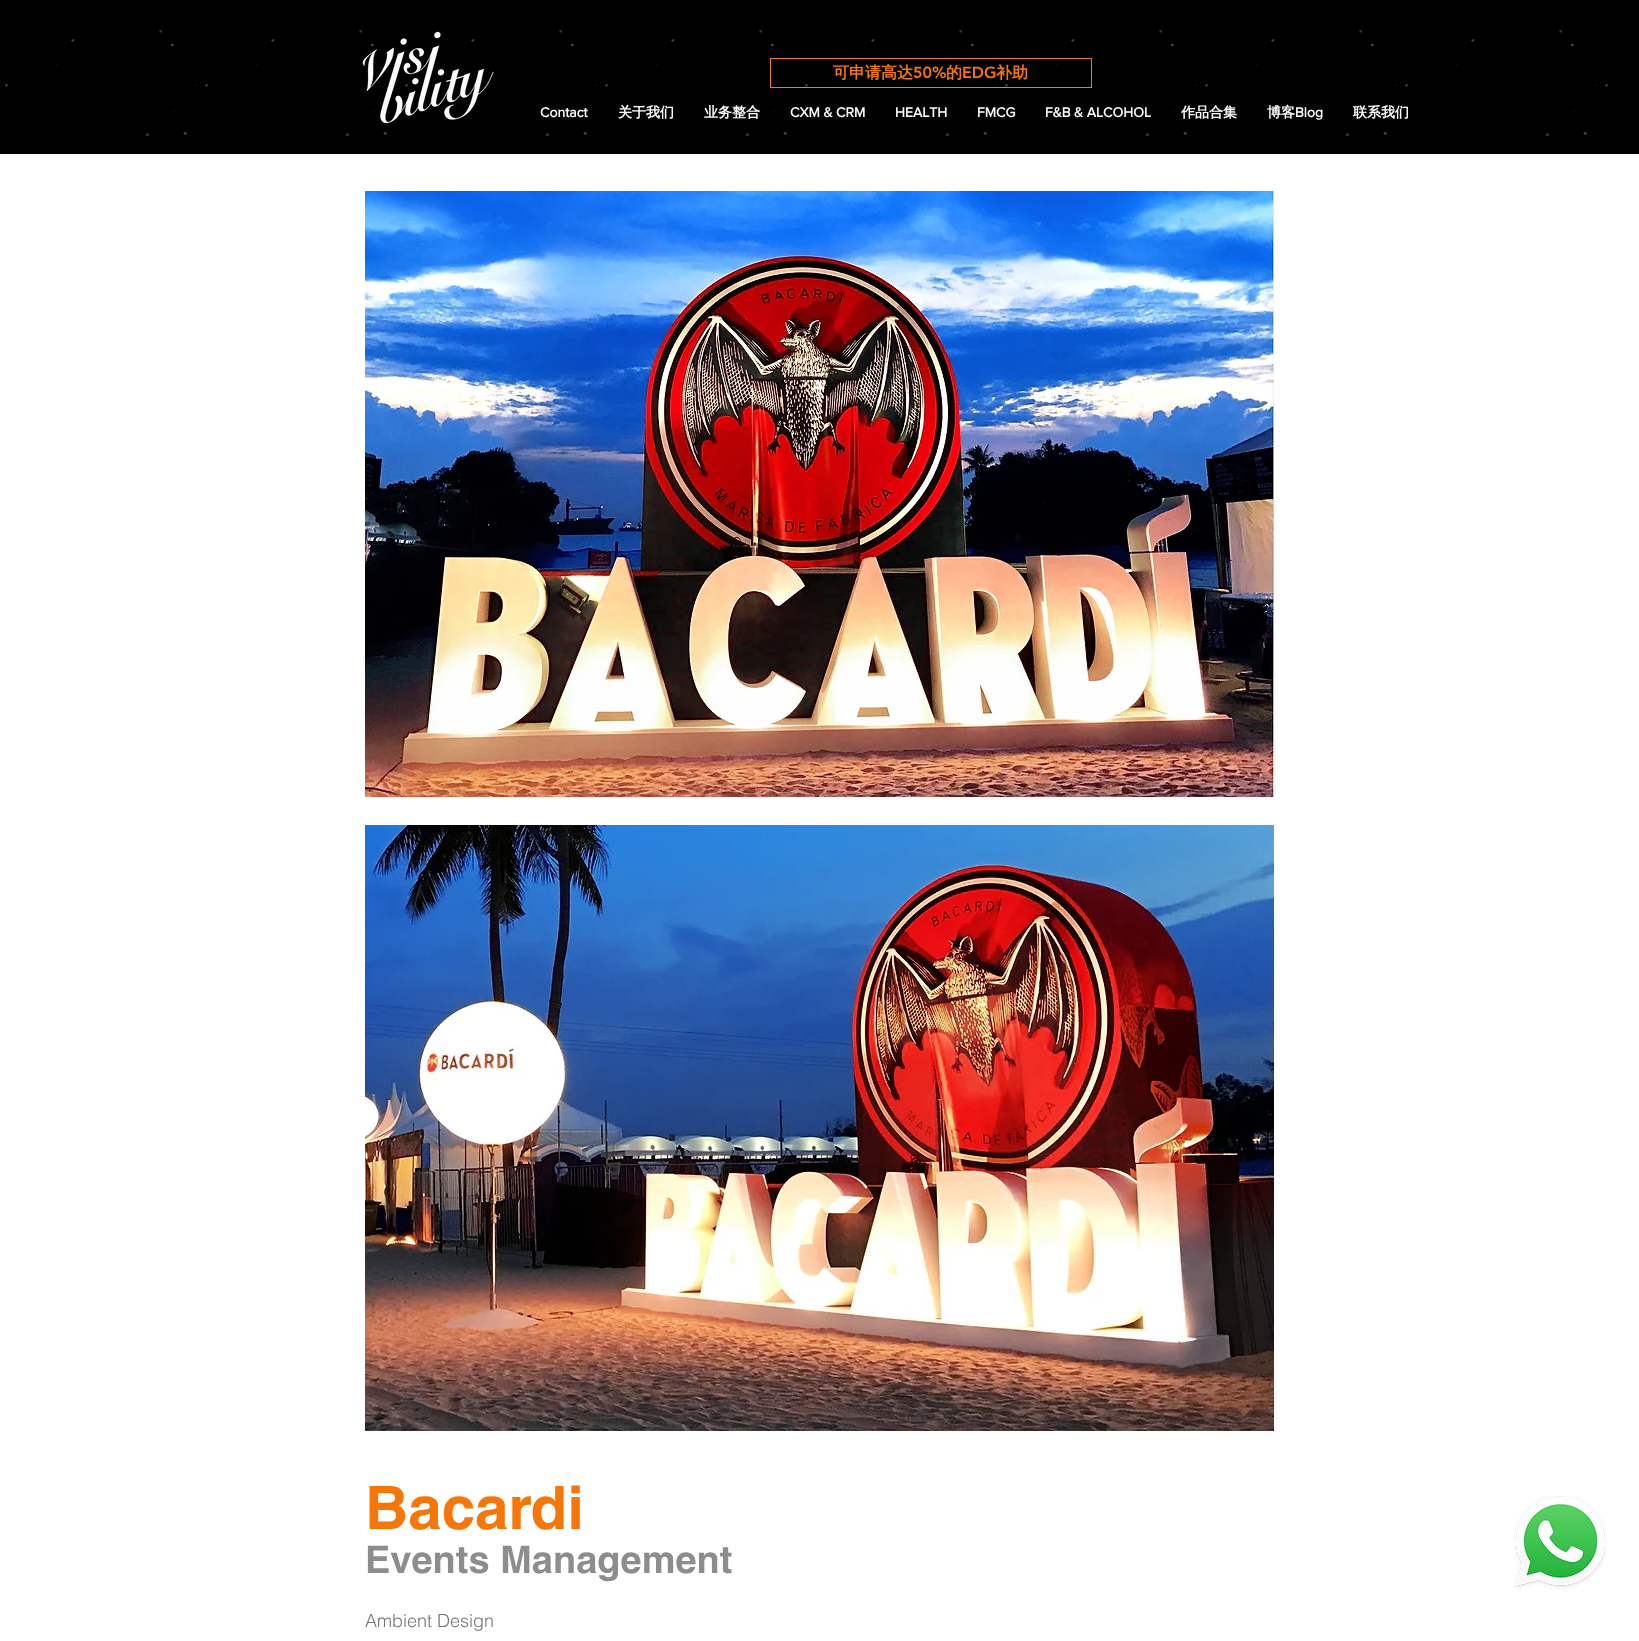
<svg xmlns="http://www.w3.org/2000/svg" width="1639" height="1641">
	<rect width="100%" height="100%" fill="#000000" />
	<image x="5" y="30" width="1603" height="108" href="assets/img1.png" />
	<image x="362" y="31" width="132" height="93" href="assets/img2.png" />
	<rect x="770.5" y="58.5" width="321" height="29" fill="none" stroke="#F87D0B" />
	<text x="833" y="78" font-family="WenQuanYi Zen Hei" font-size="16" font-weight="700" fill="#F5770A">可申请高达</text>
	<text x="913" y="78" font-family="'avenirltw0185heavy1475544'" font-size="16" font-weight="900" fill="#F5770A">50%</text>
	<text x="946" y="78" font-family="WenQuanYi Zen Hei" font-size="16" font-weight="700" fill="#F5770A">的</text>
	<text x="962" y="78" font-family="'avenirltw0185heavy1475544'" font-size="16" font-weight="900" fill="#F5770A">EDG</text>
	<text x="996" y="78" font-family="WenQuanYi Zen Hei" font-size="16" font-weight="700" fill="#F5770A">补助</text>
	<text x="540" y="117" font-family="'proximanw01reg'" font-size="14" font-weight="700" fill="#FFFFFF">Contact</text>
	<g font-family="WenQuanYi Zen Hei" font-size="14" font-weight="700" fill="#FFFFFF">
		<text x="618" y="117">关于我们</text>
		<text x="704" y="117">业务整合</text>
	</g>
	<g font-family="'proximanw01reg'" font-size="14" font-weight="700" fill="#FFFFFF">
		<text x="790" y="117">CXM &amp; CRM</text>
		<text x="895" y="117">HEALTH</text>
		<text x="977" y="117">FMCG</text>
		<text x="1045" y="117">F&amp;B &amp; ALCOHOL</text>
	</g>
	<g font-family="WenQuanYi Zen Hei" font-size="14" font-weight="700" fill="#FFFFFF">
		<text x="1181" y="117">作品合集</text>
		<text x="1267" y="117">博客</text>
	</g>
	<text x="1295" y="117" font-family="'proximanw01reg'" font-size="14" font-weight="700" fill="#FFFFFF">Blog</text>
	<text x="1353" y="117" font-family="WenQuanYi Zen Hei" font-size="14" font-weight="700" fill="#FFFFFF">联系我们</text>
	<rect x="0" y="154" width="1639" height="1487" fill="#FFFFFF" />
	<image x="365" y="191" width="909" height="606" href="assets/img3.png" />
	<image x="365" y="825" width="909" height="606" href="assets/img4.png" />
	<text x="365" y="1529" font-family="helvetica" font-size="60" font-weight="700" fill="#F5770A">Bacardi</text>
	<text x="365" y="1573" font-family="helvetica" font-size="38" font-weight="700" fill="#8D8D8D">Events Management</text>
	<text x="365" y="1627" font-family="helvetica" font-size="18" font-weight="300" fill="#737373">Ambient Design</text>
	<image x="1514" y="1496" width="93" height="93" href="assets/img5.png" />
</svg>
